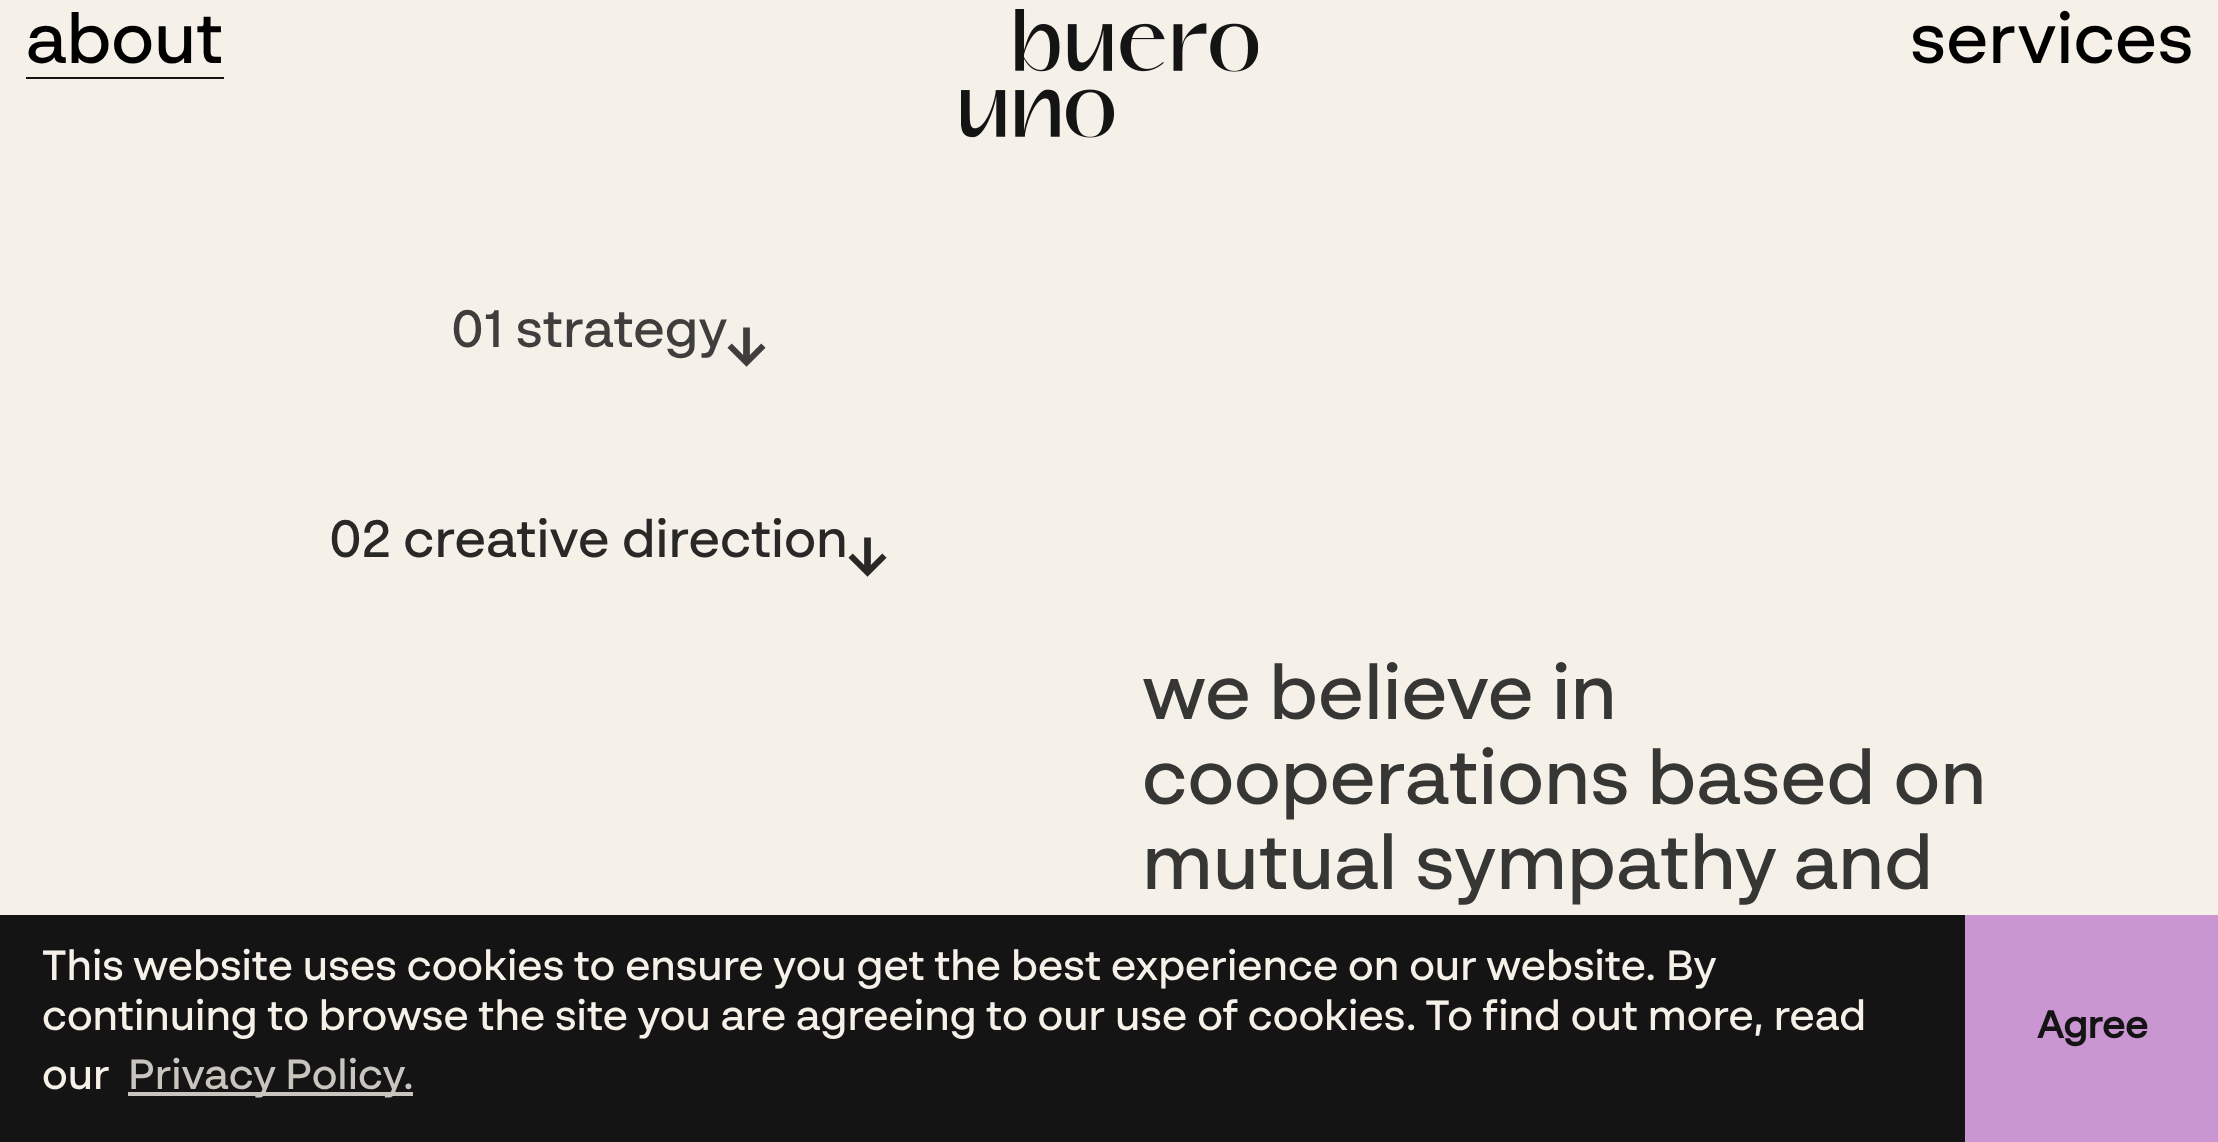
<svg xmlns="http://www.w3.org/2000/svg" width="2218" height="1142">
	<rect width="100%" height="100%" fill="#F5F1E8" />
	<image x="961" y="9" width="297" height="129" href="assets/img1.png" />
	<text x="26" y="63" font-family="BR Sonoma" font-size="70" font-weight="500" fill="#000000">about</text>
	<rect x="26" y="77" width="198" height="2" fill="#141414" />
	<text x="1910" y="63" font-family="BR Sonoma" font-size="70" font-weight="500" fill="#000000">services</text>
	<text x="451" y="347" font-family="BR Sonoma" font-size="52.5" font-weight="500" fill="#3F3E3D">01 strategy</text>
	<text x="771" y="372" transform="rotate(-90 771 372)" font-family="BR Sonoma" font-size="70" font-weight="500" fill="#3F3E3D">←</text>
	<text x="329" y="557" font-family="BR Sonoma" font-size="52.5" font-weight="500" fill="#292827">02 creative direction</text>
	<text x="892" y="582" transform="rotate(-90 892 582)" font-family="BR Sonoma" font-size="70" font-weight="500" fill="#292827">←</text>
	<g font-family="BR Sonoma" font-size="76.4" font-weight="500" fill="#363634">
		<text x="1142" y="719">we believe in</text>
		<text x="1142" y="804">cooperations based on</text>
		<text x="1142" y="889">mutual sympathy and</text>
	</g>
	<rect x="0" y="915" width="1965" height="227" fill="#141414" />
	<g font-family="BR Sonoma" font-size="42" font-weight="500" fill="#F5F1E8">
		<text x="42" y="980">This website uses cookies to ensure you get the best experience on our website. By</text>
		<text x="42" y="1030">continuing to browse the site you are agreeing to our use of cookies. To find out more, read</text>
		<text x="42" y="1089">our</text>
	</g>
	<rect x="128" y="1092" width="285" height="4" fill="#C8C5BE" />
	<text x="128" y="1089" font-family="BR Sonoma" font-size="42" font-weight="500" fill="#C8C5BE">Privacy Policy.</text>
	<rect x="1965" y="915" width="253" height="227" fill="#C996D2" />
	<text x="2037" y="1038" font-family="BR Sonoma" font-size="38" font-weight="700" fill="#141414">Agree</text>
</svg>
